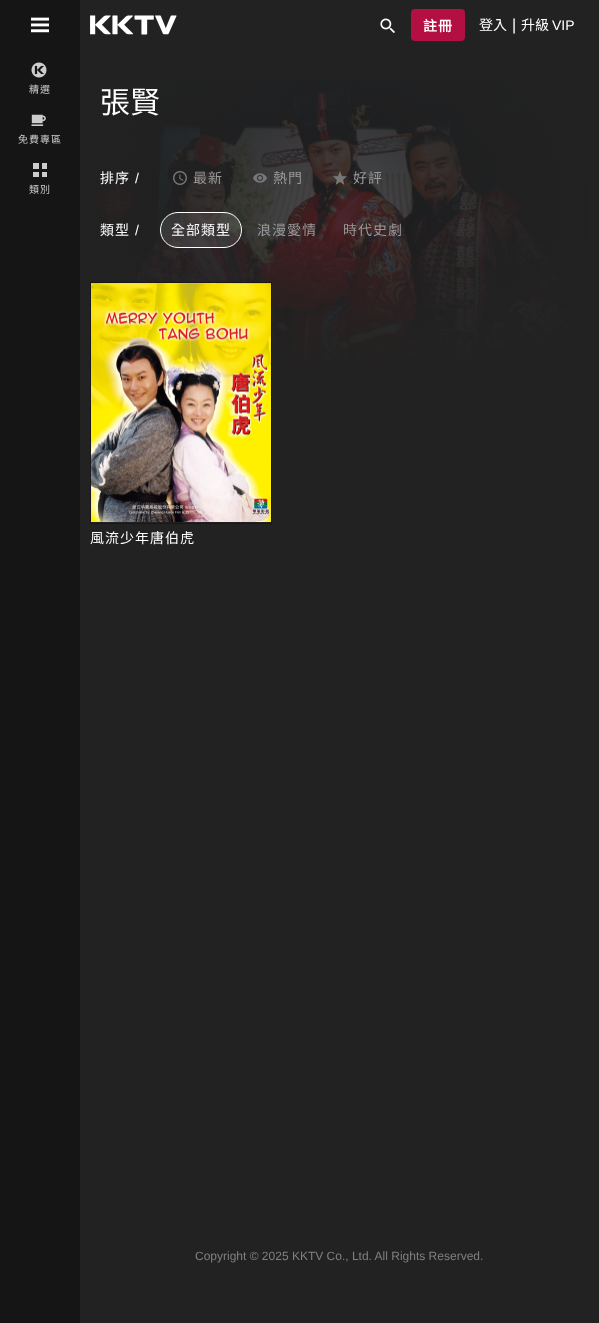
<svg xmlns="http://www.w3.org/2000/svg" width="599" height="1323">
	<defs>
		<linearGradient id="g1" gradientUnits="userSpaceOnUse" x1="340" y1="80" x2="340" y2="371"><stop offset="0" stop-color="#000000" stop-opacity="0" /><stop offset="0.5" stop-color="#222222" stop-opacity="0" /><stop offset="1" stop-color="#222222" stop-opacity="0.93" /></linearGradient>
		<radialGradient id="g2" gradientUnits="userSpaceOnUse" cx="340" cy="226" r="289"><stop offset="0" stop-color="#222222" stop-opacity="0.8" /><stop offset="0.5" stop-color="#222222" stop-opacity="0.93" /><stop offset="1" stop-color="#222222" /></radialGradient>
	</defs>
	<rect width="100%" height="100%" fill="#222222" />
	<rect x="0" y="0" width="80" height="1323" fill="#151515" />
	<image x="31" y="17" width="18" height="16" href="assets/img1.png" />
	<image x="90" y="15" width="87" height="20" href="assets/img2.png" />
	<image x="380" y="18" width="15" height="16" href="assets/img3.png" />
	<rect x="411" y="9" width="54" height="32" rx="4" fill="#B40F42" />
	<text x="423" y="31" font-family="Noto Sans CJK TC" font-size="14" font-weight="700" letter-spacing="1" fill="#FFFFFF">註冊</text>
	<text x="479" y="30" font-family="Noto Sans CJK TC" font-size="14" fill="#FFFFFF">登入</text>
	<text x="512" y="30" font-family="Liberation Sans" font-size="16" fill="#FFFFFF">|</text>
	<text x="521" y="30" font-family="Noto Sans CJK TC" font-size="14" fill="#FFFFFF">升級</text>
	<text x="552" y="30" font-family="Liberation Sans" font-size="14" fill="#FFFFFF">VIP</text>
	<image x="31" y="62" width="16" height="16" href="assets/img4.png" />
	<text x="29" y="93" font-family="Noto Sans CJK TC" font-size="10" letter-spacing="1" fill="#CCCCCC">精選</text>
	<image x="31" y="114" width="15" height="12" href="assets/img5.png" />
	<text x="18" y="143" font-family="Noto Sans CJK TC" font-size="10" letter-spacing="1" fill="#CCCCCC">免費專區</text>
	<image x="33" y="163" width="14" height="14" href="assets/img6.png" />
	<text x="29" y="193" font-family="Noto Sans CJK TC" font-size="10" letter-spacing="1" fill="#CCCCCC">類別</text>
	<image x="90" y="80" width="499" height="281" href="assets/img7.png" />
	<rect x="90" y="229" width="499" height="132" fill="url(#g1)" />
	<rect x="90" y="80" width="499" height="281" fill="url(#g2)" />
	<text x="100" y="113" font-family="Noto Sans CJK TC" font-size="30" fill="#FFFFFF">張賢</text>
	<text x="100" y="183" font-family="Noto Sans CJK TC" font-size="14" letter-spacing="1" fill="#FFFFFF">排序</text>
	<text x="135" y="183" font-family="Liberation Sans" font-size="14" letter-spacing="1" fill="#FFFFFF">/</text>
	<image x="173" y="171" width="14" height="14" href="assets/img8.png" />
	<text x="193" y="183" font-family="Noto Sans CJK TC" font-size="14" letter-spacing="1" fill="#999999">最新</text>
	<image x="253" y="173" width="14" height="10" href="assets/img9.png" />
	<text x="273" y="183" font-family="Noto Sans CJK TC" font-size="14" letter-spacing="1" fill="#999999">熱門</text>
	<image x="333" y="171" width="14" height="14" href="assets/img10.png" />
	<text x="353" y="183" font-family="Noto Sans CJK TC" font-size="14" letter-spacing="1" fill="#999999">好評</text>
	<text x="100" y="235" font-family="Noto Sans CJK TC" font-size="14" letter-spacing="1" fill="#FFFFFF">類型</text>
	<text x="135" y="235" font-family="Liberation Sans" font-size="14" letter-spacing="1" fill="#FFFFFF">/</text>
	<rect x="160.5" y="212.5" width="81" height="35" rx="17.5" fill="#FFFFFF" fill-opacity="0.1" stroke="#FFFFFF" />
	<text x="171" y="235" font-family="Noto Sans CJK TC" font-size="14" letter-spacing="1" fill="#FFFFFF">全部類型</text>
	<g font-family="Noto Sans CJK TC" font-size="14" letter-spacing="1" fill="#999999">
		<text x="257" y="235">浪漫愛情</text>
		<text x="343" y="235">時代史劇</text>
	</g>
	<rect x="90.5" y="282.5" width="181" height="241" fill="none" stroke="#000000" stroke-opacity="0.3" />
	<image x="91" y="283" width="180" height="239" href="assets/img11.png" />
	<text x="90" y="543" font-family="Noto Sans CJK TC" font-size="14" letter-spacing="1" fill="#FFFFFF">風流少年唐伯虎</text>
	<text x="195" y="1260" font-family="Liberation Sans" font-size="12" fill="#808080">Copyright © 2025 KKTV Co., Ltd. All Rights Reserved.</text>
</svg>
